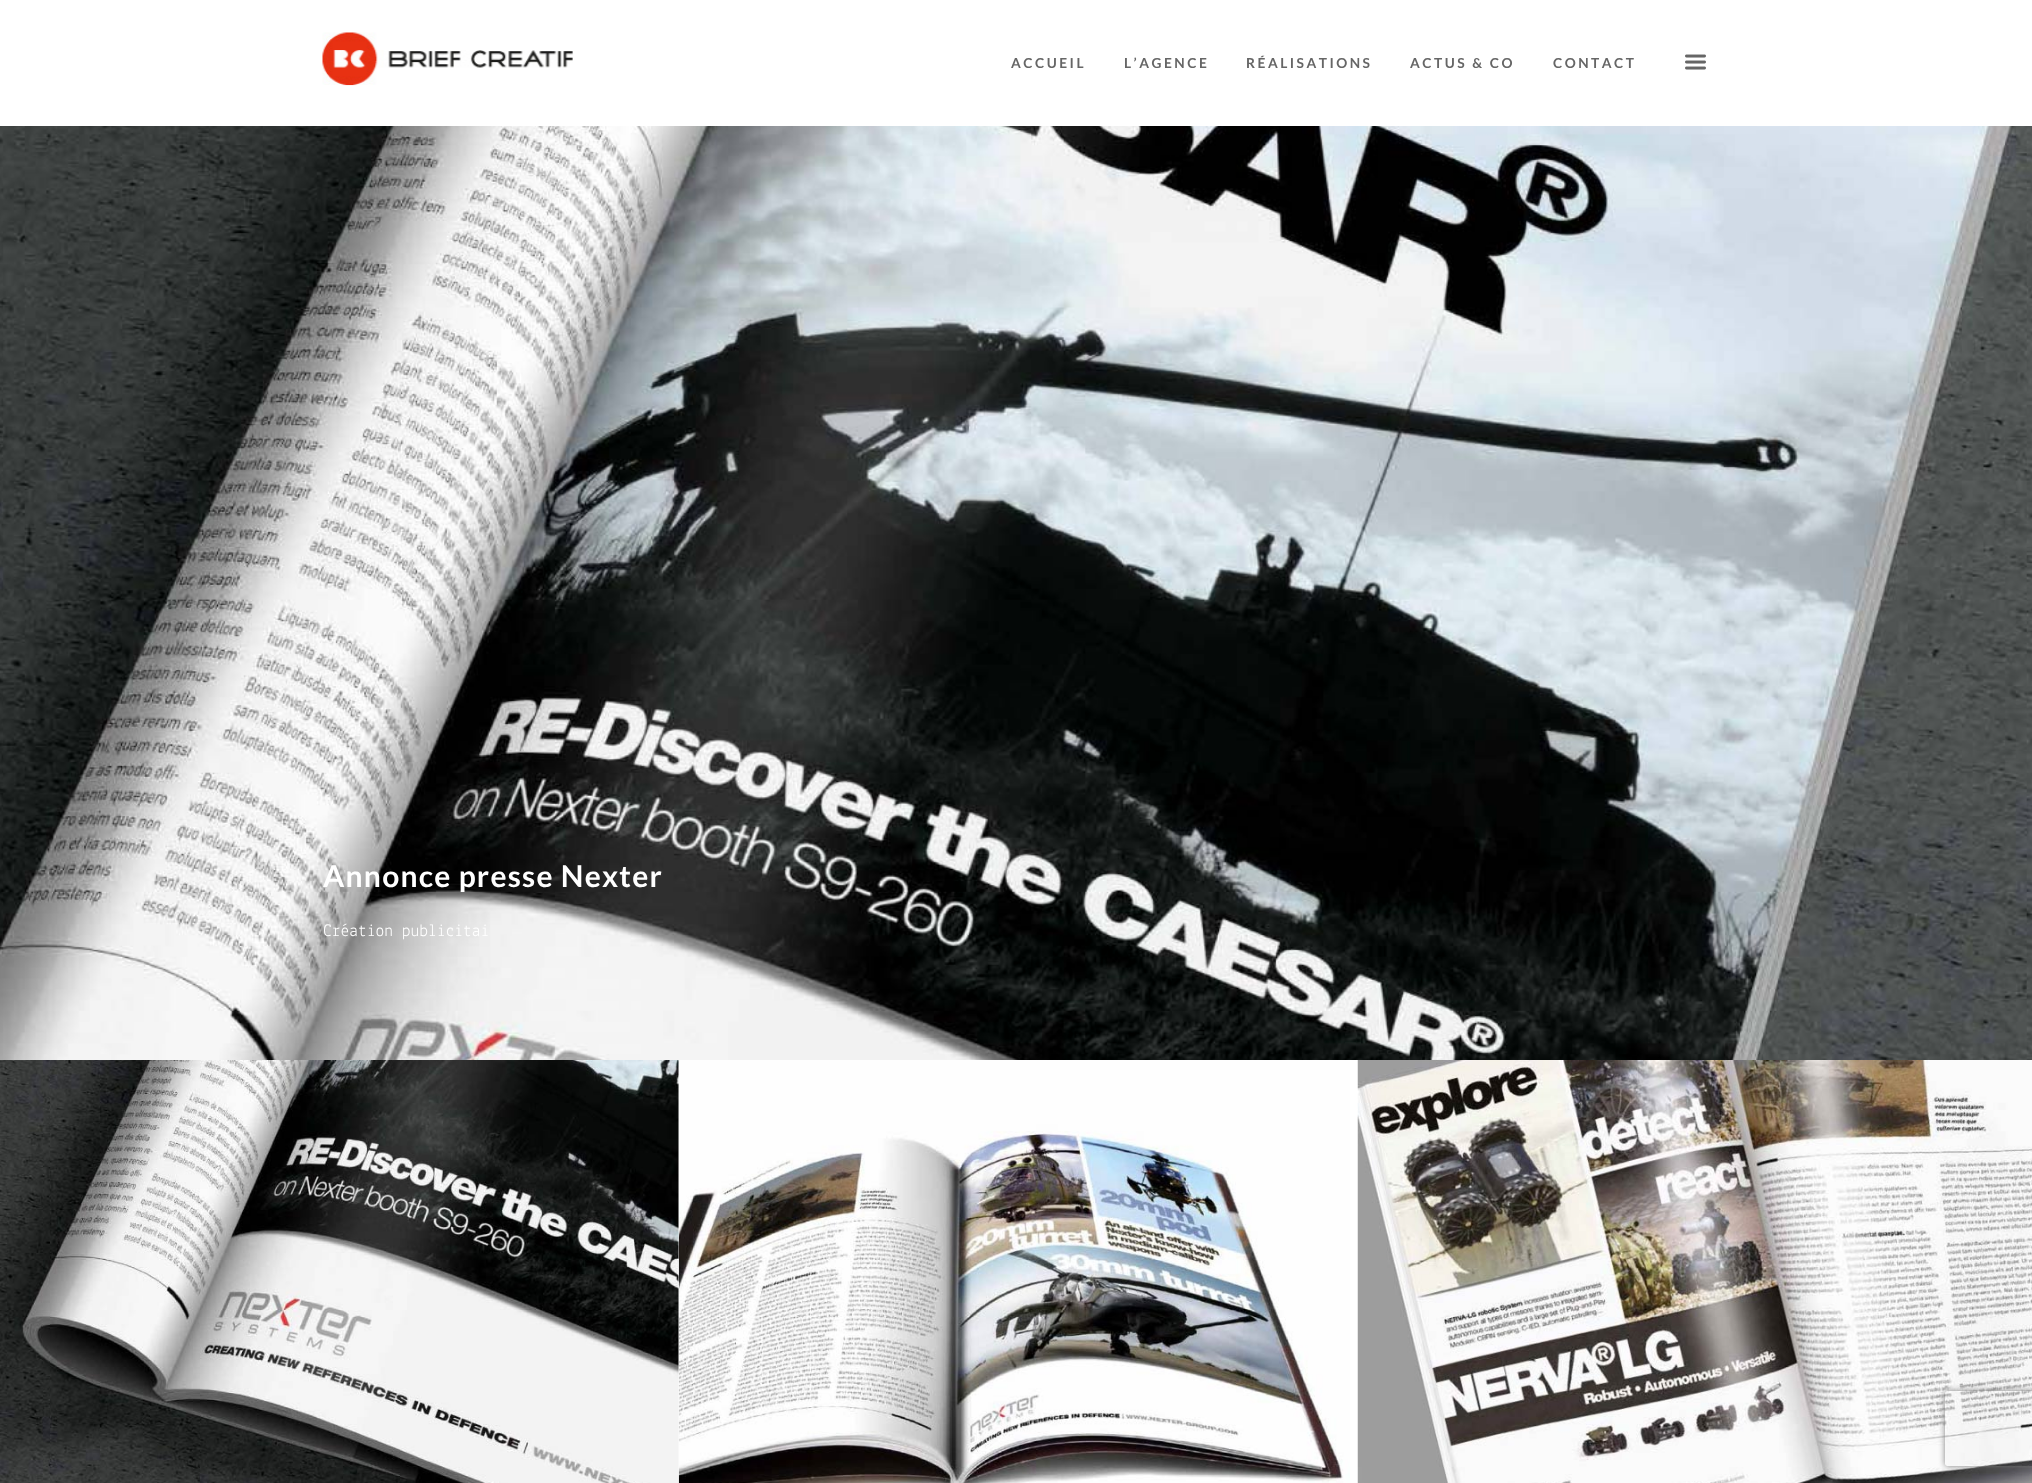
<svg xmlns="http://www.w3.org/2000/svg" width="2032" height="1483">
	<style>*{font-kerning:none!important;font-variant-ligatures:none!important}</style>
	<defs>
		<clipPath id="clip1"><path d="M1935 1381H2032V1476H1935ZM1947.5 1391H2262.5C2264 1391 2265 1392 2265 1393.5V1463.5C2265 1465 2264 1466 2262.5 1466H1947.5C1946 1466 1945 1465 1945 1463.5V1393.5C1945 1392 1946 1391 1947.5 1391Z" clip-rule="evenodd" /></clipPath>
	</defs>
	<rect width="100%" height="100%" fill="#FFFFFF" />
	<image x="322" y="32" width="251" height="54" href="assets/img1.png" />
	<g font-family="Lato" font-size="13.75" font-weight="700" letter-spacing="2.5" fill="#666666">
		<text x="1011" y="68">ACCUEIL</text>
		<text x="1124" y="68">L’AGENCE</text>
		<text x="1246" y="68">RÉALISATIONS</text>
		<text x="1410" y="68">ACTUS &amp; CO</text>
		<text x="1553" y="68">CONTACT</text>
	</g>
	<image x="1685" y="54" width="21" height="16" href="assets/img2.png" />
	<image x="0" y="126" width="2032" height="934" href="assets/img3.png" />
	<text x="323" y="887" font-family="Lato" font-size="30" font-weight="700" letter-spacing="1.25" fill="#FFFFFF">Annonce presse Nexter</text>
	<text x="323" y="936" font-family="Lekton" font-size="17.5" fill="#FFFFFF">Création publicitai</text>
	<image x="0" y="1060" width="679" height="423" href="assets/img4.png" />
	<image x="678" y="1060" width="672" height="423" href="assets/img5.png" />
	<image x="1357" y="1060" width="675" height="423" href="assets/img6.png" />
	<g clip-path="url(#clip1)">
		<rect x="1945" y="1391" width="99" height="75" rx="2.5" fill="#808080" filter="blur(3px)" />
	</g>
</svg>
